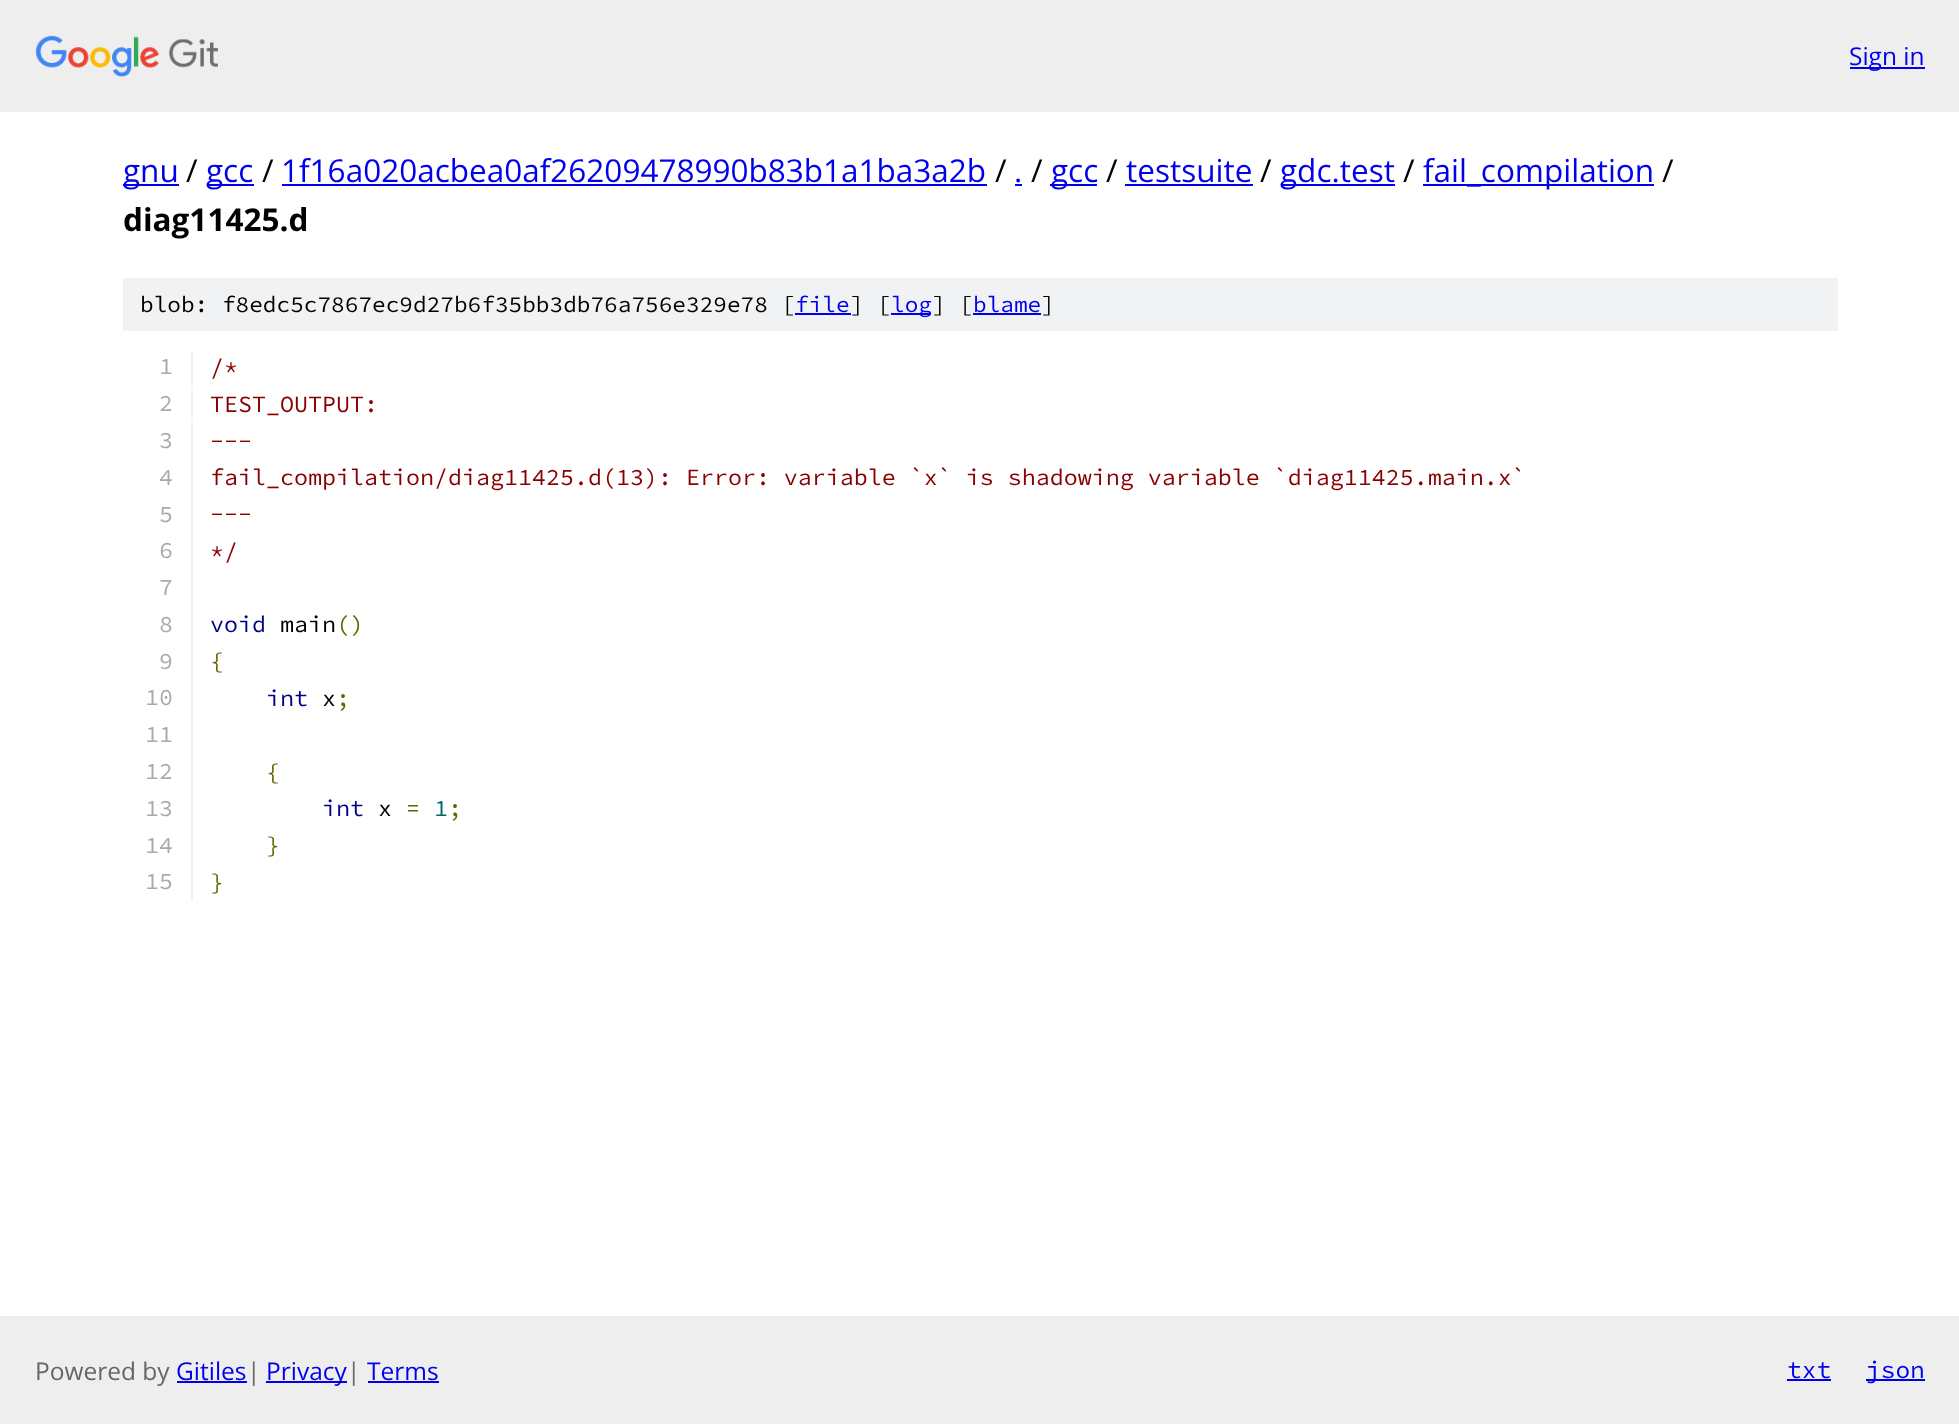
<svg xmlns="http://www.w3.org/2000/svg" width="1959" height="1424">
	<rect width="100%" height="100%" fill="#FFFFFF" />
	<rect x="0" y="0" width="1959" height="112" fill="#EEEEEE" />
	<image x="35" y="35" width="183" height="42" href="assets/img1.png" />
	<rect x="1850" y="67" width="75" height="2" fill="#0000EE" />
	<text x="1849" y="65" font-family="Open Sans" font-size="24.5" fill="#0000EE">Sign in</text>
	<rect x="123" y="184" width="56" height="2" fill="#0000EE" />
	<text x="123" y="182" font-family="Open Sans" font-size="31.5" fill="#0000EE">gnu</text>
	<text x="186" y="182" font-family="Open Sans" font-size="31.5" fill="#000000">/</text>
	<rect x="207" y="184" width="47" height="2" fill="#0000EE" />
	<text x="206" y="182" font-family="Open Sans" font-size="31.5" fill="#0000EE">gcc</text>
	<text x="262" y="182" font-family="Open Sans" font-size="31.5" fill="#000000">/</text>
	<text x="281" y="182" font-family="Open Sans" font-size="31.5" fill="#0000EE">1f16a020acbea0af26209478990b83b1a1ba3a2b</text>
	<rect x="282" y="184" width="705" height="2" fill="#0000EE" />
	<text x="995" y="182" font-family="Open Sans" font-size="31.5" fill="#000000">/</text>
	<text x="1014" y="182" font-family="Open Sans" font-size="31.5" fill="#0000EE">.</text>
	<rect x="1015" y="184" width="7" height="2" fill="#0000EE" />
	<text x="1031" y="182" font-family="Open Sans" font-size="31.5" fill="#000000">/</text>
	<rect x="1050" y="184" width="47" height="2" fill="#0000EE" />
	<text x="1051" y="182" font-family="Open Sans" font-size="31.5" fill="#0000EE">gcc</text>
	<text x="1106" y="182" font-family="Open Sans" font-size="31.5" fill="#000000">/</text>
	<text x="1126" y="182" font-family="Open Sans" font-size="31.5" fill="#0000EE">testsuite</text>
	<rect x="1125" y="184" width="128" height="2" fill="#0000EE" />
	<text x="1260" y="182" font-family="Open Sans" font-size="31.5" fill="#000000">/</text>
	<rect x="1281" y="184" width="114" height="2" fill="#0000EE" />
	<text x="1280" y="182" font-family="Open Sans" font-size="31.5" fill="#0000EE">gdc.test</text>
	<text x="1403" y="182" font-family="Open Sans" font-size="31.5" fill="#000000">/</text>
	<rect x="1423" y="184" width="231" height="2" fill="#0000EE" />
	<text x="1423" y="182" font-family="Open Sans" font-size="31.5" fill="#0000EE">fail_compilation</text>
	<text x="1662" y="182" font-family="Open Sans" font-size="31.5" fill="#000000">/</text>
	<text x="123" y="231" font-family="Open Sans" font-size="31.5" font-weight="700" fill="#000000">diag11425.d</text>
	<rect x="123" y="278" width="1715" height="53" fill="#F1F2F3" />
	<text x="140" y="312" font-family="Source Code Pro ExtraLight" font-size="22.75" font-weight="200" fill="#000000">blob: f8edc5c7867ec9d27b6f35bb3db76a756e329e78 [</text>
	<text x="795" y="312" font-family="Source Code Pro ExtraLight" font-size="22.75" font-weight="200" fill="#0000EE">file</text>
	<rect x="795" y="313" width="56" height="2" fill="#0000EE" />
	<text x="850" y="312" font-family="Source Code Pro ExtraLight" font-size="22.75" font-weight="200" fill="#000000">] [</text>
	<rect x="891" y="313" width="40" height="2" fill="#0000EE" />
	<text x="891" y="312" font-family="Source Code Pro ExtraLight" font-size="22.75" font-weight="200" fill="#0000EE">log</text>
	<text x="932" y="312" font-family="Source Code Pro ExtraLight" font-size="22.75" font-weight="200" fill="#000000">] [</text>
	<text x="973" y="312" font-family="Source Code Pro ExtraLight" font-size="22.75" font-weight="200" fill="#0000EE">blame</text>
	<rect x="973" y="313" width="68" height="2" fill="#0000EE" />
	<text x="1041" y="312" font-family="Source Code Pro ExtraLight" font-size="22.75" font-weight="200" fill="#000000">]</text>
	<rect x="191" y="350" width="2" height="35" fill="#F1F2F3" />
	<text x="159" y="374" font-family="Source Code Pro ExtraLight" font-size="23.33" font-weight="200" fill="#AAAAAA">1</text>
	<text x="210" y="375" font-family="Source Code Pro ExtraLight" font-size="23.33" font-weight="200" fill="#880000">/*</text>
	<rect x="191" y="387" width="2" height="35" fill="#F1F2F3" />
	<text x="159" y="411" font-family="Source Code Pro ExtraLight" font-size="23.33" font-weight="200" fill="#AAAAAA">2</text>
	<text x="210" y="412" font-family="Source Code Pro ExtraLight" font-size="23.33" font-weight="200" fill="#880000">TEST_OUTPUT:</text>
	<rect x="191" y="424" width="2" height="477" fill="#F1F2F3" />
	<text x="159" y="448" font-family="Source Code Pro ExtraLight" font-size="23.33" font-weight="200" fill="#AAAAAA">3</text>
	<text x="210" y="449" font-family="Source Code Pro ExtraLight" font-size="23.33" font-weight="200" fill="#880000">---</text>
	<text x="159" y="485" font-family="Source Code Pro ExtraLight" font-size="23.33" font-weight="200" fill="#AAAAAA">4</text>
	<text x="210" y="485" font-family="Source Code Pro ExtraLight" font-size="23.33" font-weight="200" fill="#880000">fail_compilation/diag11425.d(13): Error: variable `x` is shadowing variable `diag11425.main.x`</text>
	<text x="159" y="522" font-family="Source Code Pro ExtraLight" font-size="23.33" font-weight="200" fill="#AAAAAA">5</text>
	<text x="210" y="522" font-family="Source Code Pro ExtraLight" font-size="23.33" font-weight="200" fill="#880000">---</text>
	<text x="159" y="558" font-family="Source Code Pro ExtraLight" font-size="23.33" font-weight="200" fill="#AAAAAA">6</text>
	<text x="210" y="559" font-family="Source Code Pro ExtraLight" font-size="23.33" font-weight="200" fill="#880000">*/</text>
	<g font-family="Source Code Pro ExtraLight" font-size="23.33" font-weight="200" fill="#AAAAAA">
		<text x="159" y="595">7</text>
		<text x="159" y="632">8</text>
	</g>
	<text x="210" y="632" font-family="Source Code Pro ExtraLight" font-size="23.33" font-weight="200" fill="#000088">void</text>
	<text x="280" y="632" font-family="Source Code Pro ExtraLight" font-size="23.33" font-weight="200" fill="#000000">main</text>
	<text x="336" y="632" font-family="Source Code Pro ExtraLight" font-size="23.33" font-weight="200" fill="#666600">()</text>
	<text x="159" y="669" font-family="Source Code Pro ExtraLight" font-size="23.33" font-weight="200" fill="#AAAAAA">9</text>
	<text x="210" y="669" font-family="Source Code Pro ExtraLight" font-size="23.33" font-weight="200" fill="#666600">{</text>
	<text x="145" y="705" font-family="Source Code Pro ExtraLight" font-size="23.33" font-weight="200" fill="#AAAAAA">10</text>
	<text x="266" y="706" font-family="Source Code Pro ExtraLight" font-size="23.33" font-weight="200" fill="#000088">int</text>
	<text x="322" y="706" font-family="Source Code Pro ExtraLight" font-size="23.33" font-weight="200" fill="#000000">x</text>
	<text x="336" y="706" font-family="Source Code Pro ExtraLight" font-size="23.33" font-weight="200" fill="#666600">;</text>
	<g font-family="Source Code Pro ExtraLight" font-size="23.33" font-weight="200" fill="#AAAAAA">
		<text x="145" y="742">11</text>
		<text x="145" y="779">12</text>
	</g>
	<text x="266" y="780" font-family="Source Code Pro ExtraLight" font-size="23.33" font-weight="200" fill="#666600">{</text>
	<text x="145" y="816" font-family="Source Code Pro ExtraLight" font-size="23.33" font-weight="200" fill="#AAAAAA">13</text>
	<text x="322" y="816" font-family="Source Code Pro ExtraLight" font-size="23.33" font-weight="200" fill="#000088">int</text>
	<text x="378" y="816" font-family="Source Code Pro ExtraLight" font-size="23.33" font-weight="200" fill="#000000">x</text>
	<text x="406" y="816" font-family="Source Code Pro ExtraLight" font-size="23.33" font-weight="200" fill="#666600">=</text>
	<text x="434" y="816" font-family="Source Code Pro ExtraLight" font-size="23.33" font-weight="200" fill="#006666">1</text>
	<text x="448" y="816" font-family="Source Code Pro ExtraLight" font-size="23.33" font-weight="200" fill="#666600">;</text>
	<text x="145" y="853" font-family="Source Code Pro ExtraLight" font-size="23.33" font-weight="200" fill="#AAAAAA">14</text>
	<text x="266" y="853" font-family="Source Code Pro ExtraLight" font-size="23.33" font-weight="200" fill="#666600">}</text>
	<text x="145" y="889" font-family="Source Code Pro ExtraLight" font-size="23.33" font-weight="200" fill="#AAAAAA">15</text>
	<text x="210" y="890" font-family="Source Code Pro ExtraLight" font-size="23.33" font-weight="200" fill="#666600">}</text>
	<rect x="0" y="1316" width="1959" height="108" fill="#EEEEEE" />
	<text x="35" y="1380" font-family="Open Sans" font-size="24.5" fill="#666666">Powered by</text>
	<text x="176" y="1380" font-family="Open Sans" font-size="24.5" fill="#0000EE">Gitiles</text>
	<rect x="177" y="1381" width="70" height="2" fill="#0000EE" />
	<text x="247" y="1380" font-family="Open Sans" font-size="24.5" fill="#666666">|</text>
	<rect x="266" y="1381" width="81" height="2" fill="#0000EE" />
	<text x="266" y="1380" font-family="Open Sans" font-size="24.5" fill="#0000EE">Privacy</text>
	<text x="347" y="1380" font-family="Open Sans" font-size="24.5" fill="#666666">|</text>
	<text x="367" y="1380" font-family="Open Sans" font-size="24.5" fill="#0000EE">Terms</text>
	<rect x="368" y="1381" width="71" height="2" fill="#0000EE" />
	<text x="1787" y="1378" font-family="Source Code Pro ExtraLight" font-size="24.5" font-weight="200" fill="#0000EE">txt</text>
	<rect x="1787" y="1379" width="44" height="2" fill="#0000EE" />
	<rect x="1866" y="1379" width="59" height="2" fill="#0000EE" />
	<text x="1866" y="1378" font-family="Source Code Pro ExtraLight" font-size="24.5" font-weight="200" fill="#0000EE">json</text>
</svg>
